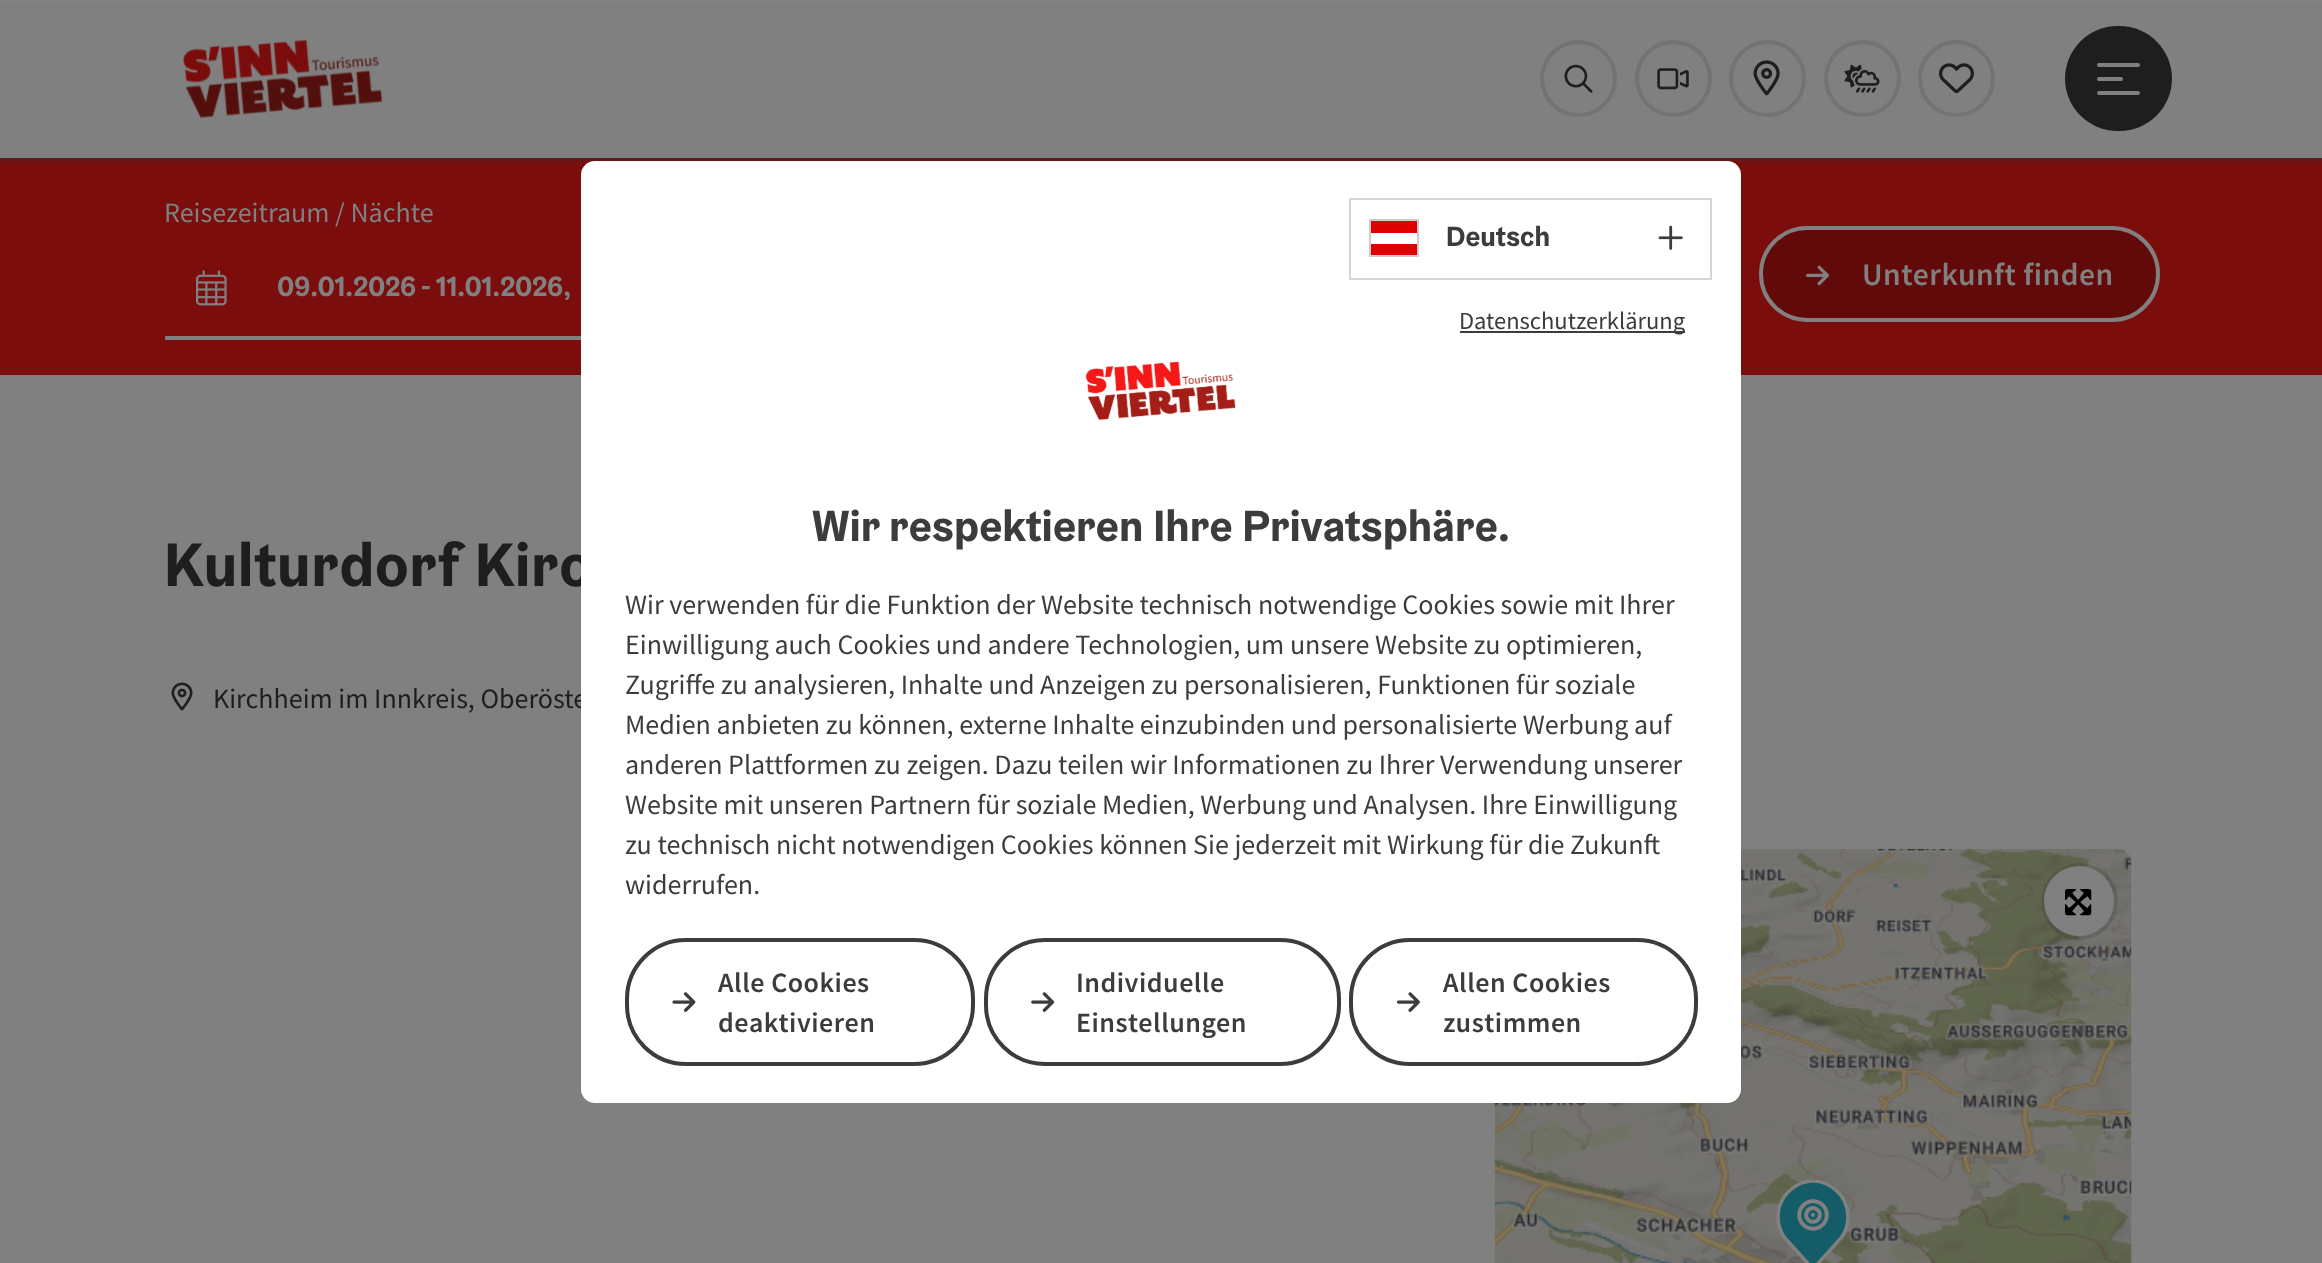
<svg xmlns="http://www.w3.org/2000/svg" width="2322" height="1263">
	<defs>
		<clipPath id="clip1"><rect x="1776" y="1180" width="74" height="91" /></clipPath>
	</defs>
	<rect width="100%" height="100%" fill="#808080" />
	<rect x="0" y="158" width="2322" height="217" fill="#7B0D0D" />
	<rect x="-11" y="14" width="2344" height="144" fill="#333333" filter="blur(3.5px)" />
	<rect x="0" y="8" width="2322" height="150" fill="#808080" />
	<image x="183" y="39" width="200" height="80" href="assets/img1.png" />
	<circle cx="1578.5" cy="78.5" r="36.5" fill="none" stroke="#737373" stroke-width="4" />
	<image x="1564" y="64" width="29" height="29" href="assets/img2.png" />
	<circle cx="1673.5" cy="78.5" r="36.5" fill="none" stroke="#737373" stroke-width="4" />
	<image x="1657" y="68" width="32" height="22" href="assets/img3.png" />
	<circle cx="1767.5" cy="78.5" r="36.5" fill="none" stroke="#737373" stroke-width="4" />
	<image x="1753" y="60" width="27" height="36" href="assets/img4.png" />
	<circle cx="1862.5" cy="78.5" r="36.5" fill="none" stroke="#737373" stroke-width="4" />
	<image x="1844" y="64" width="36" height="29" href="assets/img5.png" />
	<circle cx="1956.5" cy="78.5" r="36.5" fill="none" stroke="#737373" stroke-width="4" />
	<image x="1939" y="63" width="35" height="31" href="assets/img6.png" />
	<rect x="2065" y="26" width="107" height="105" rx="52.5" fill="#1E1E1E" />
	<rect x="2097" y="63" width="43" height="4" rx="2" fill="#808080" />
	<rect x="2097" y="77" width="26" height="4" rx="2" fill="#808080" />
	<rect x="2097" y="91" width="43" height="4" rx="2" fill="#808080" />
	<text x="164" y="222" font-family="Source Sans Pro" font-size="28" fill="#808080">Reisezeitraum / Nächte</text>
	<rect x="165" y="336" width="416" height="4" fill="#808080" />
	<image x="196" y="270" width="31" height="36" href="assets/img7.png" />
	<g font-family="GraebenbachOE" font-size="28" font-weight="700" fill="#808080">
		<text x="277" y="296">09.01.2026</text>
		<text x="421" y="296">- 11.01.2026,</text>
	</g>
	<rect x="1761" y="228" width="397" height="92" rx="46" fill="#620A0A" stroke="#808080" stroke-width="4" />
	<image x="1806" y="265" width="23" height="21" href="assets/img8.png" />
	<text x="1862" y="285" font-family="Source Sans Pro" font-size="31.5" font-weight="600" letter-spacing="0.5" fill="#808080">Unterkunft finden</text>
	<text x="164" y="586" font-family="GraebenbachOE" font-size="61.25" font-weight="700" letter-spacing="0.5" fill="#1E1E1E">Kulturdorf Kirc</text>
	<image x="171" y="682" width="22" height="29" href="assets/img9.png" />
	<text x="213" y="708" font-family="Source Sans Pro" font-size="28" fill="#1E1E1E">Kirchheim im Innkreis, Oberöste</text>
	<image x="1494" y="848" width="638" height="415" href="assets/img10.png" />
	<path d="M1813 1181C1801 1181 1790 1187 1784 1197C1776 1209 1776 1226 1785 1238L1813 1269L1841 1238C1850 1226 1850 1209 1842 1197C1836 1187 1825 1181 1813 1181Z" fill="#145C67" />
	<g clip-path="url(#clip1)">
		<path d="M1813 1181C1801.5 1181 1790.5 1187.5 1784 1197C1776 1209 1776 1225.5 1784.5 1237.5L1813 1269L1841.5 1237.5C1850 1225.5 1850 1209 1842 1197C1835.5 1187.5 1824.5 1181 1813 1181Z" fill="none" stroke="#808080" stroke-width="3.5" />
	</g>
	<image x="1797" y="1199" width="32" height="32" href="assets/img11.png" />
	<circle cx="2079.5" cy="901.5" r="36.5" fill="none" stroke="#000000" stroke-opacity="0.1" stroke-width="4" />
	<circle cx="2079" cy="901" r="35" fill="#808080" />
	<image x="2065" y="889" width="27" height="27" href="assets/img12.png" />
	<rect x="581" y="161" width="1160" height="942" rx="14" fill="#FFFFFF" />
	<rect x="1350" y="199" width="361" height="80" fill="none" stroke="#D6D6D6" stroke-width="2" />
	<path d="M1417 256H1371V244H1417ZM1417 233H1371V221H1417Z" fill="#DF0000" fill-rule="evenodd" />
	<rect x="1370" y="220" width="48" height="36" fill="none" stroke="#CCCCCC" stroke-width="2" />
	<text x="1446" y="246" font-family="GraebenbachOE" font-size="28" font-weight="700" fill="#3C3C3C">Deutsch</text>
	<image x="1658" y="225" width="25" height="25" href="assets/img13.png" />
	<rect x="1460" y="331" width="225" height="2" fill="#3C3C3C" />
	<text x="1459" y="329" font-family="Source Sans Pro" font-size="24.5" fill="#3C3C3C">Datenschutzerklärung</text>
	<image x="1085" y="361" width="151" height="59" href="assets/img14.png" />
	<text x="812" y="541" font-family="GraebenbachOE" font-size="43.75" font-weight="700" fill="#3C3C3C">Wir respektieren Ihre Privatsphäre.</text>
	<g font-family="Source Sans Pro" font-size="28" fill="#3C3C3C">
		<text x="625" y="614">Wir verwenden für die Funktion der Website technisch notwendige Cookies sowie mit Ihrer</text>
		<text x="625" y="654">Einwilligung auch Cookies und andere Technologien, um unsere Website zu optimieren,</text>
		<text x="625" y="694">Zugriffe zu analysieren, Inhalte und Anzeigen zu personalisieren, Funktionen für soziale</text>
		<text x="625" y="734">Medien anbieten zu können, externe Inhalte einzubinden und personalisierte Werbung auf</text>
		<text x="625" y="774">anderen Plattformen zu zeigen. Dazu teilen wir Informationen zu Ihrer Verwendung unserer</text>
		<text x="625" y="814">Website mit unseren Partnern für soziale Medien, Werbung und Analysen. Ihre Einwilligung</text>
		<text x="625" y="854">zu technisch nicht notwendigen Cookies können Sie jederzeit mit Wirkung für die Zukunft</text>
		<text x="625" y="894">widerrufen.</text>
	</g>
	<rect x="627" y="940" width="346" height="124" rx="59" fill="none" stroke="#3C3C3C" stroke-width="4" />
	<text x="718" y="992" font-family="Source Sans Pro" font-size="28" font-weight="600" letter-spacing="0.5" fill="#3C3C3C">Alle Cookies</text>
	<image x="672" y="992" width="24" height="20" href="assets/img15.png" />
	<text x="718" y="1032" font-family="Source Sans Pro" font-size="28" font-weight="600" letter-spacing="0.5" fill="#3C3C3C">deaktivieren</text>
	<rect x="986" y="940" width="353" height="124" rx="59" fill="none" stroke="#3C3C3C" stroke-width="4" />
	<text x="1076" y="992" font-family="Source Sans Pro" font-size="28" font-weight="600" letter-spacing="0.5" fill="#3C3C3C">Individuelle</text>
	<image x="1031" y="992" width="24" height="20" href="assets/img16.png" />
	<text x="1076" y="1032" font-family="Source Sans Pro" font-size="28" font-weight="600" letter-spacing="0.5" fill="#3C3C3C">Einstellungen</text>
	<rect x="1351" y="940" width="345" height="124" rx="59" fill="none" stroke="#3C3C3C" stroke-width="4" />
	<text x="1443" y="992" font-family="Source Sans Pro" font-size="28" font-weight="600" letter-spacing="0.5" fill="#3C3C3C">Allen Cookies</text>
	<image x="1397" y="992" width="23" height="20" href="assets/img17.png" />
	<text x="1443" y="1032" font-family="Source Sans Pro" font-size="28" font-weight="600" letter-spacing="0.5" fill="#3C3C3C">zustimmen</text>
</svg>
